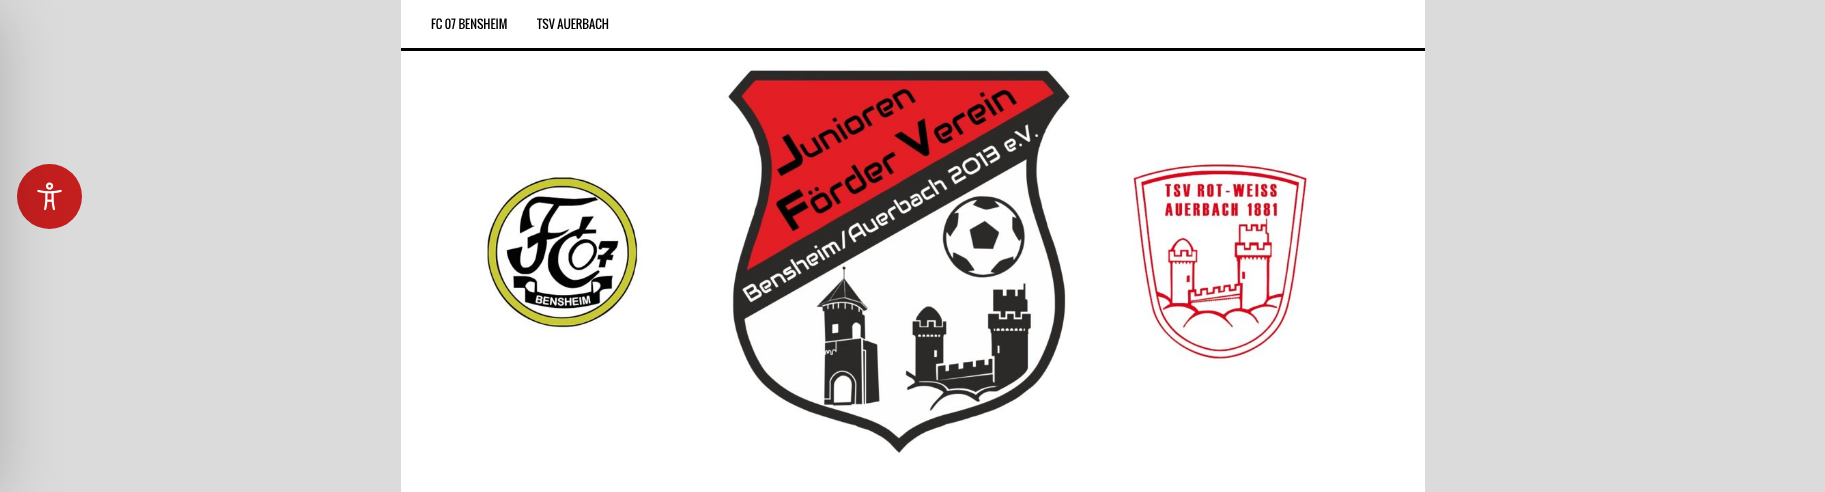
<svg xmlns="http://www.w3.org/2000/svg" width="1825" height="492">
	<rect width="100%" height="100%" fill="#DBDBDB" />
	<circle cx="49.5" cy="196.5" r="32.5" fill="#C41F1F" />
	<image x="37" y="182" width="25" height="29" href="assets/img1.png" />
	<rect x="-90" y="10" width="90" height="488" fill="#000000" fill-opacity="0.2" filter="blur(30px)" />
	<rect x="401" y="0" width="1024" height="48" fill="#FFFFFF" />
	<rect x="401" y="48" width="1024" height="3" fill="#000000" />
	<g font-family="Oswald" font-size="12" fill="#000000">
		<text x="431" y="29">FC 07 BENSHEIM</text>
		<text x="537" y="29">TSV AUERBACH</text>
	</g>
	<image x="401" y="51" width="1024" height="441" href="assets/img2.png" />
</svg>
